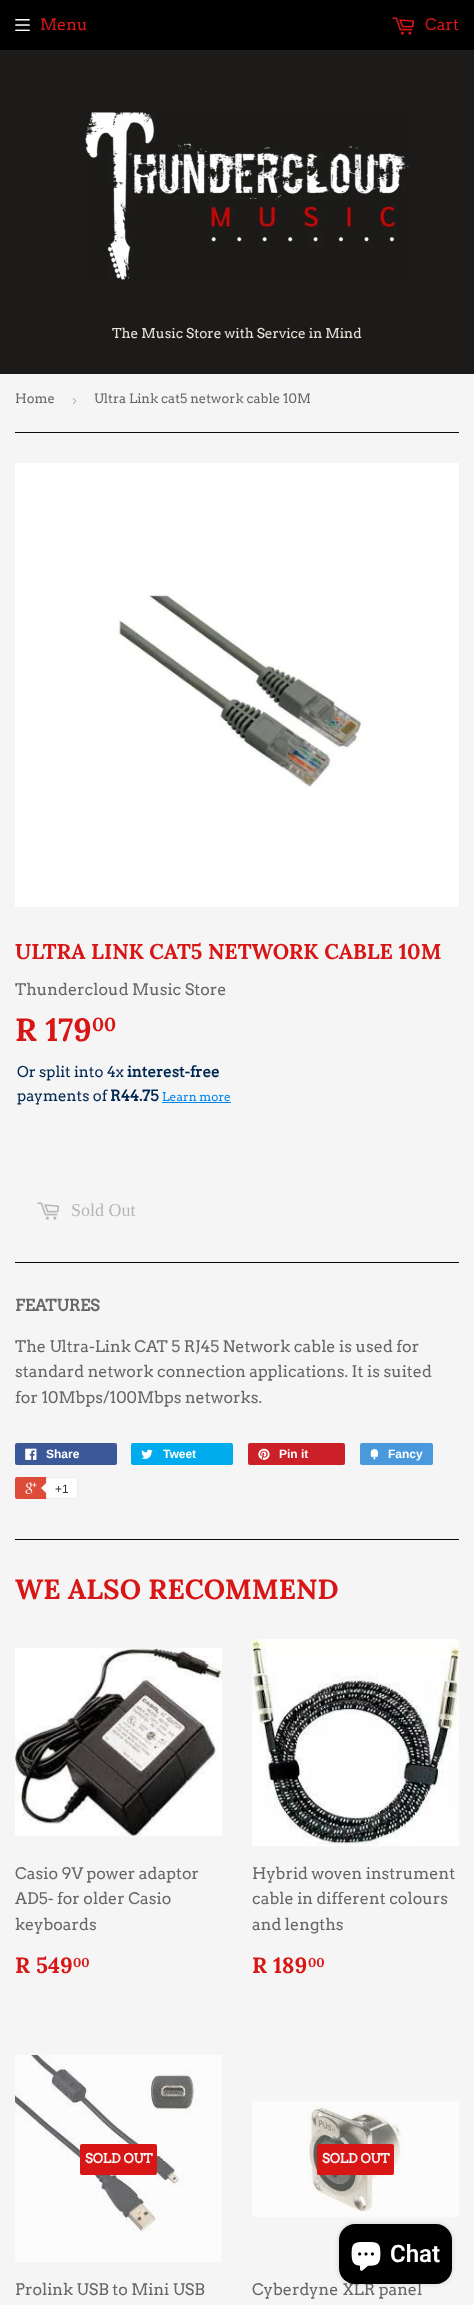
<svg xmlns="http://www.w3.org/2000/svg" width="474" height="2305">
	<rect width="100%" height="100%" fill="#F5F5F5" />
	<rect x="0" y="0" width="474" height="50" fill="#000000" />
	<image x="15" y="19" width="15" height="12" href="assets/img1.png" />
	<text x="40" y="30" font-family="Arvo" font-size="16" fill="#D81616">Menu</text>
	<image x="392" y="17" width="23" height="18" href="assets/img2.png" />
	<text x="425" y="30" font-family="Arvo" font-size="16" fill="#D81616">Cart</text>
	<rect x="0" y="50" width="474" height="324" fill="#1D1A1A" />
	<image x="85" y="111" width="324" height="169" href="assets/img3.png" />
	<text x="112" y="338" font-family="Arvo" font-size="13.6" fill="#EBE2D8">The Music Store with Service in Mind</text>
	<rect x="15" y="432" width="444" height="1" fill="#0B0B0A" />
	<text x="15" y="403" font-family="Arvo" font-size="13" fill="#686666">Home</text>
	<text x="72" y="405" font-family="Liberation Sans" font-size="15" fill="#B6B6B6">›</text>
	<text x="94" y="403" font-family="Arvo" font-size="13" fill="#686666">Ultra Link cat5 network cable 10M</text>
	<image x="15" y="463" width="444" height="444" href="assets/img4.png" />
	<text x="15" y="959" font-family="Lora" font-size="21.3" font-weight="700" fill="#D81616">ULTRA LINK CAT5 NETWORK CABLE 10M</text>
	<text x="15" y="995" font-family="Arvo" font-size="16" fill="#686666">Thundercloud Music Store</text>
	<text x="15" y="1041" font-family="Lora" font-size="32" font-weight="700" fill="#D81616">R 179</text>
	<text x="92" y="1031" font-family="Lora" font-size="19" font-weight="700" fill="#D81616">00</text>
	<text x="17" y="1077" font-family="Arvo" font-size="15" fill="#002751">Or split into 4x</text>
	<text x="127" y="1077" font-family="Arvo" font-size="15" font-weight="700" fill="#002751">interest-free</text>
	<text x="17" y="1101" font-family="Arvo" font-size="15" fill="#002751">payments of</text>
	<text x="110" y="1101" font-family="Arvo" font-size="15" font-weight="700" fill="#002751">R44.75</text>
	<text x="162" y="1101" font-family="Arvo" font-size="12" fill="#0086EF">Learn more</text>
	<rect x="162" y="1102" width="69" height="1" fill="#0086EF" />
	<image x="37" y="1202" width="23" height="18" href="assets/img5.png" />
	<text x="71" y="1216" font-family="Liberation Serif" font-size="18" fill="#B6B6B6">Sold Out</text>
	<rect x="15" y="1262" width="444" height="1" fill="#0B0B0A" />
	<text x="15" y="1311" font-family="Arvo" font-size="16" font-weight="700" fill="#686666">FEATURES</text>
	<g font-family="Arvo" font-size="16" fill="#686666">
		<text x="15" y="1352">The Ultra-Link CAT 5 RJ45 Network cable is used for</text>
		<text x="15" y="1377">standard network connection applications. It is suited</text>
		<text x="15" y="1403">for 10Mbps/100Mbps networks.</text>
	</g>
	<rect x="15" y="1443" width="102" height="22" rx="2" fill="#3B5998" />
	<image x="25" y="1448" width="12" height="12" href="assets/img6.png" />
	<text x="46" y="1458" font-family="Liberation Sans" font-size="12" font-weight="700" fill="#FFFFFF">Share</text>
	<rect x="131" y="1443" width="102" height="22" rx="2" fill="#00ACED" />
	<image x="141" y="1449" width="12" height="10" href="assets/img7.png" />
	<text x="163" y="1458" font-family="Liberation Sans" font-size="12" font-weight="700" fill="#FFFFFF">Tweet</text>
	<rect x="248" y="1443" width="97" height="22" rx="2" fill="#CB2027" />
	<image x="258" y="1448" width="12" height="12" href="assets/img8.png" />
	<text x="279" y="1458" font-family="Liberation Sans" font-size="12" font-weight="700" fill="#FFFFFF">Pin it</text>
	<rect x="360" y="1443" width="73" height="22" rx="2" fill="#4999DC" />
	<image x="370" y="1449" width="9" height="11" href="assets/img9.png" />
	<text x="388" y="1458" font-family="Liberation Sans" font-size="12" font-weight="700" fill="#FFFFFF">Fancy</text>
	<rect x="15" y="1477" width="61" height="22" rx="2" fill="#DD4B39" />
	<image x="25" y="1482" width="12" height="12" href="assets/img10.png" />
	<path d="M46.5 1477.5H76C77 1477.5 77.5 1478 77.5 1479V1497C77.5 1498 77 1498.5 76 1498.5H46.5Z" fill="#FFFFFF" stroke="#ECECEC" />
	<path d="M47 1482V1494L41 1488Z" fill="#ECECEC" />
	<path d="M48 1482V1494L42 1488Z" fill="#FFFFFF" />
	<text x="55" y="1493" font-family="Liberation Sans" font-size="12" fill="#333333">+1</text>
	<rect x="15" y="1539" width="444" height="1" fill="#0B0B0A" />
	<text x="15" y="1599" font-family="Lora" font-size="27.75" font-weight="700" fill="#D81616">WE ALSO RECOMMEND</text>
	<image x="15" y="1648" width="207" height="188" href="assets/img11.png" />
	<g font-family="Arvo" font-size="16" fill="#686666">
		<text x="15" y="1879">Casio 9V power adaptor</text>
		<text x="15" y="1904">AD5- for older Casio</text>
		<text x="15" y="1930">keyboards</text>
	</g>
	<text x="15" y="1973" font-family="Lora" font-size="22" font-weight="700" fill="#D81616">R 549</text>
	<text x="73" y="1967" font-family="Lora" font-size="13" font-weight="700" fill="#D81616">00</text>
	<image x="252" y="1639" width="207" height="207" href="assets/img12.png" />
	<g font-family="Arvo" font-size="16" fill="#686666">
		<text x="252" y="1879">Hybrid woven instrument</text>
		<text x="252" y="1904">cable in different colours</text>
		<text x="252" y="1930">and lengths</text>
	</g>
	<text x="252" y="1973" font-family="Lora" font-size="22" font-weight="700" fill="#D81616">R 189</text>
	<text x="308" y="1967" font-family="Lora" font-size="13" font-weight="700" fill="#D81616">00</text>
	<image x="15" y="2055" width="207" height="207" href="assets/img13.png" />
	<rect x="80" y="2144" width="77" height="31" rx="2" fill="#D81616" />
	<text x="85" y="2163" font-family="Arvo" font-size="13" font-weight="700" fill="#F5F5F5">SOLD OUT</text>
	<text x="15" y="2295" font-family="Arvo" font-size="16" fill="#686666">Prolink USB to Mini USB</text>
	<image x="252" y="2101" width="207" height="116" href="assets/img14.png" />
	<rect x="317" y="2144" width="77" height="31" rx="2" fill="#D81616" />
	<text x="322" y="2163" font-family="Arvo" font-size="13" font-weight="700" fill="#F5F5F5">SOLD OUT</text>
	<text x="252" y="2295" font-family="Arvo" font-size="16" fill="#686666">Cyberdyne XLR panel</text>
	<rect x="339" y="2224" width="113" height="60" rx="16" fill="#000000" fill-opacity="0.15" filter="blur(2.5px)" />
	<rect x="339" y="2224" width="113" height="60" rx="16" fill="#000000" />
	<image x="351" y="2242" width="30" height="29" href="assets/img15.png" />
	<text x="390" y="2262" font-family="Roboto" font-size="24" font-weight="600" fill="#FFFFFF">Chat</text>
</svg>
